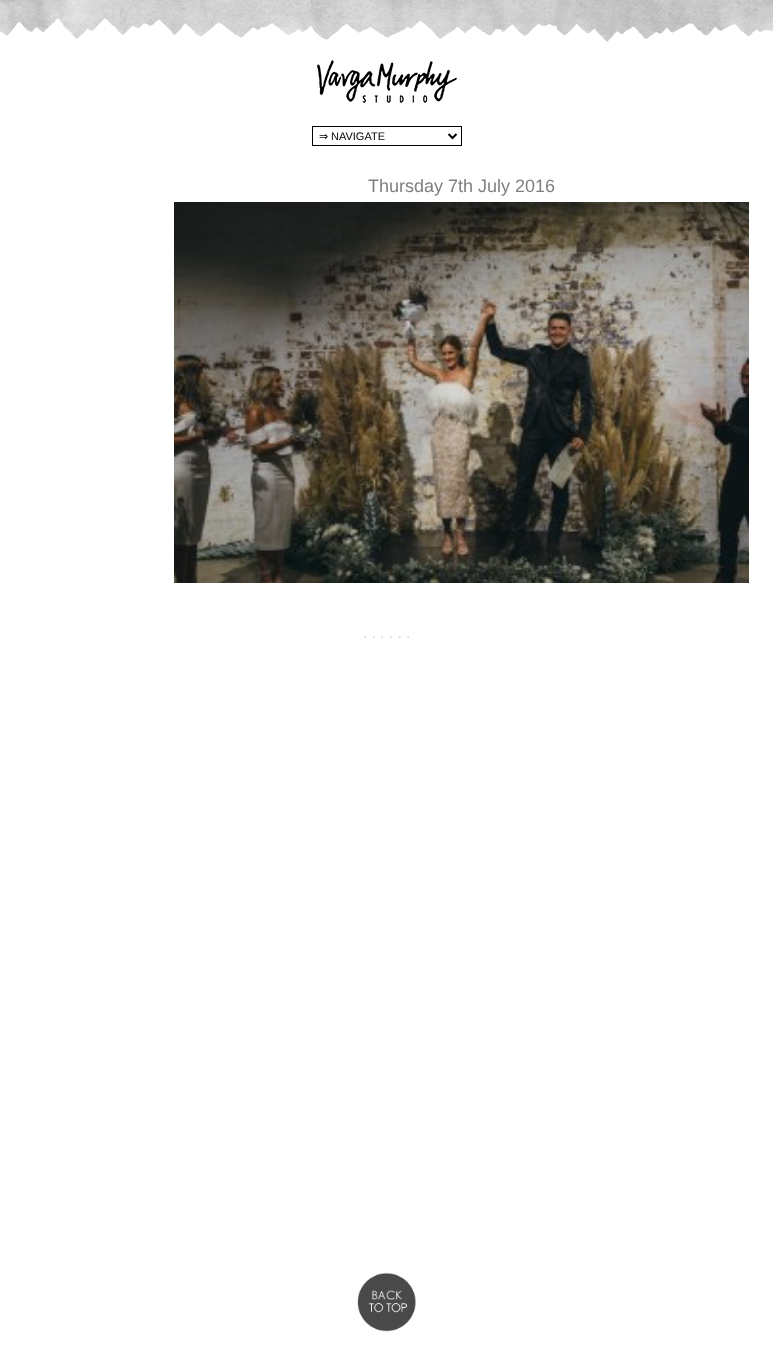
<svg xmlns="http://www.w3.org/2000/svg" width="773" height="1350">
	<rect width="100%" height="100%" fill="#FFFFFF" />
	<image x="0" y="0" width="773" height="48" href="assets/img1.png" />
	<image x="317" y="60" width="140" height="43" href="assets/img2.png" />
	<rect x="312.5" y="126.5" width="149" height="19" fill="none" stroke="#000000" />
	<path d="M448.5 134L452.5 138L456.5 134" fill="none" stroke="#000000" stroke-width="2" />
	<text x="319" y="140" font-family="DejaVu Sans" font-size="11" fill="#000000">⇒</text>
	<text x="331" y="140" font-family="Liberation Sans" font-size="11" fill="#000000">NAVIGATE</text>
	<text x="368" y="192" font-family="Liberation Sans" font-size="18" fill="#808080">Thursday 7th July 2016</text>
	<image x="174" y="202" width="575" height="381" href="assets/img3.png" />
	<text x="363" y="641" font-family="Liberation Sans" font-size="14" fill="#CCCCCC">· · · · · ·</text>
	<image x="357" y="1272" width="59" height="60" href="assets/img4.png" />
</svg>
